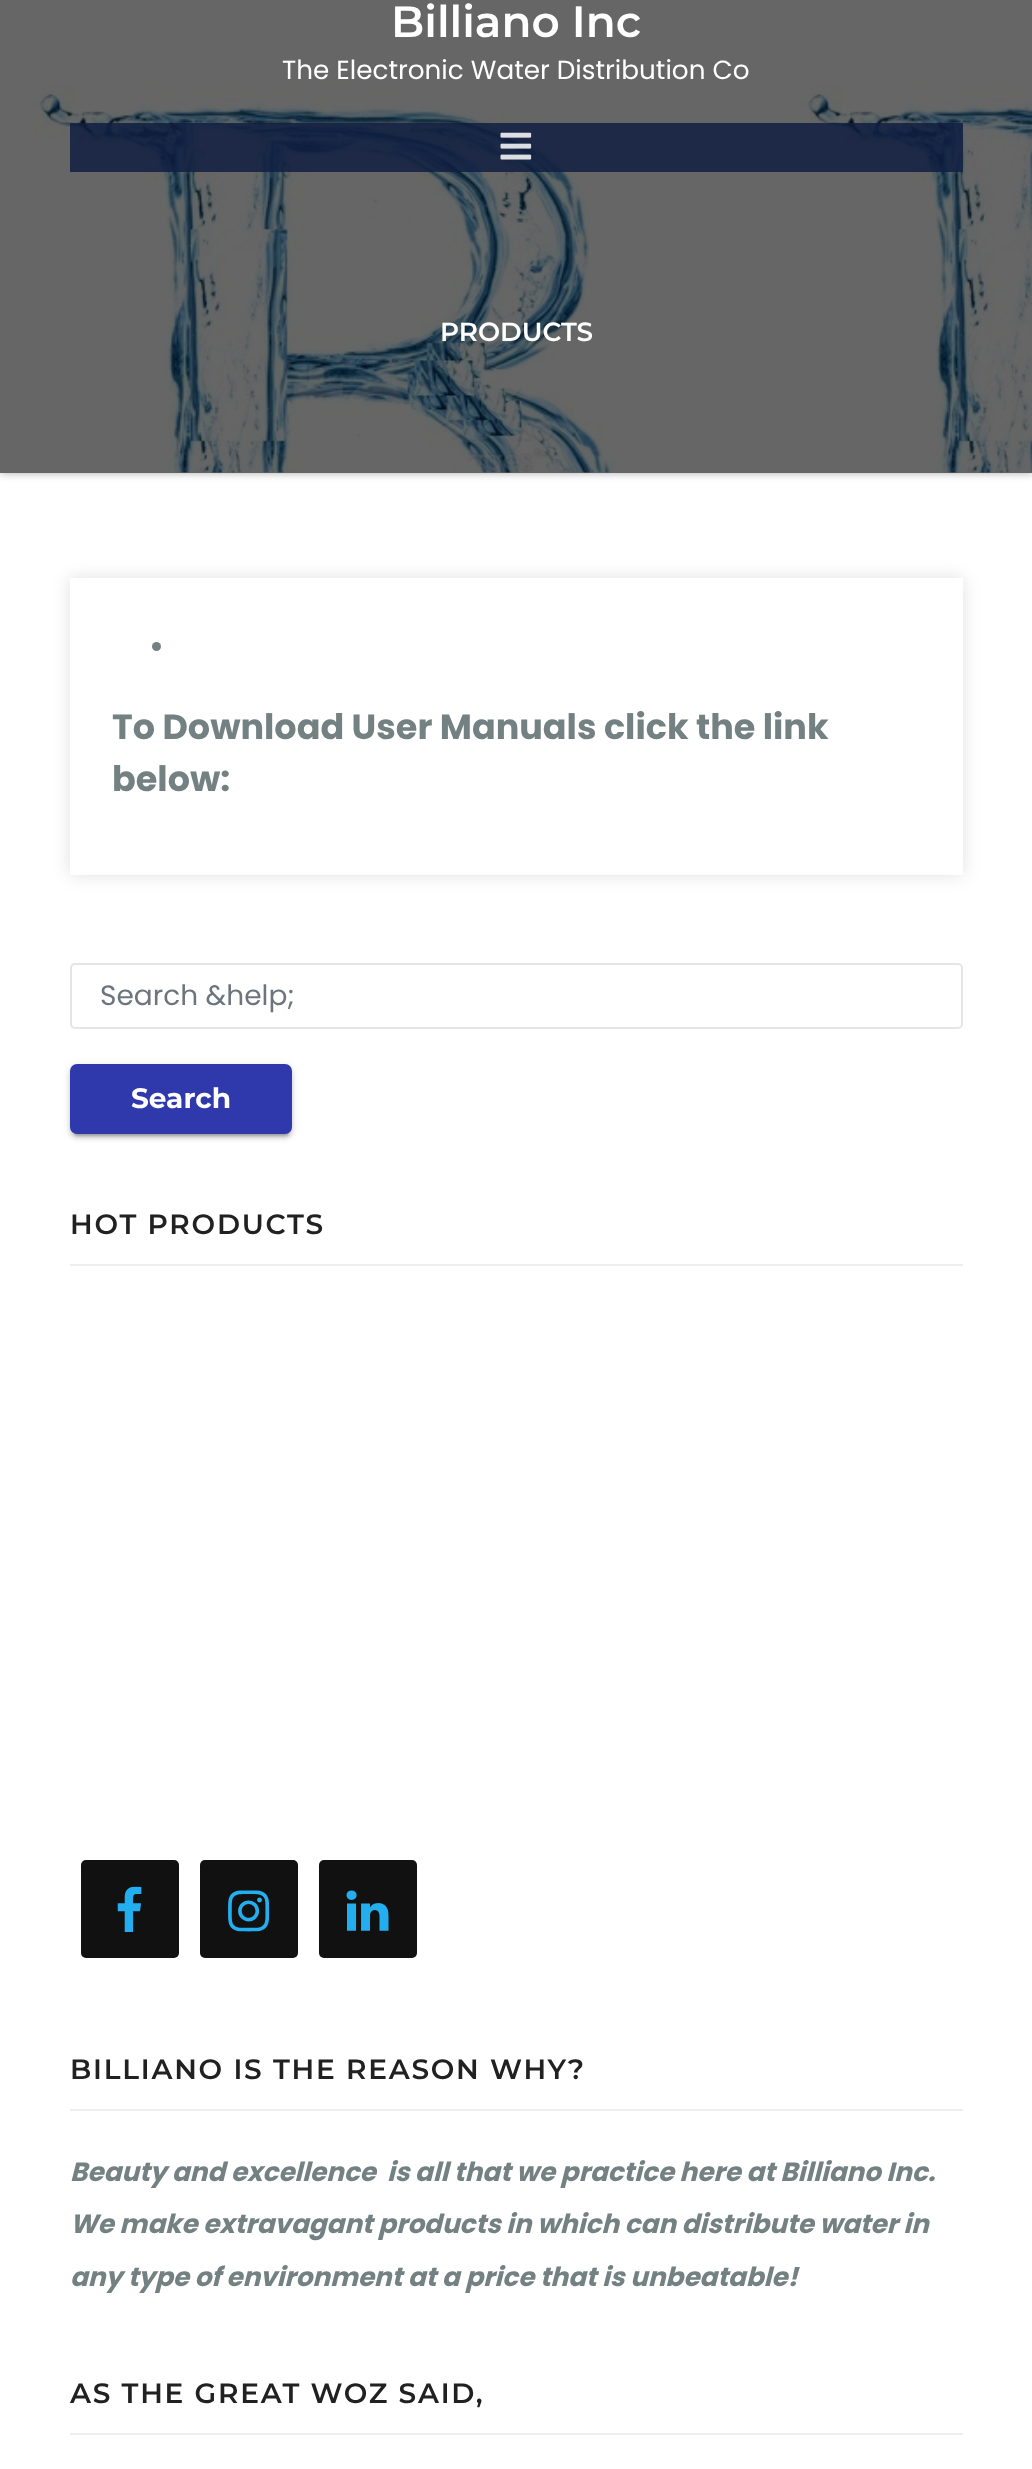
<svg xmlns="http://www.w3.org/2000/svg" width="1032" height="2469">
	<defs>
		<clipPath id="clip1"><path d="M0 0H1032V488H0ZM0 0H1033V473H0Z" clip-rule="evenodd" /></clipPath>
	</defs>
	<rect width="100%" height="100%" fill="#FFFFFF" />
	<g clip-path="url(#clip1)">
		<rect x="0" y="0" width="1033" height="473" fill="#AAAAAA" filter="blur(4.5px)" />
	</g>
	<image x="0" y="84" width="1032" height="389" href="assets/img2.png" />
	<rect x="0" y="0" width="1032" height="473" fill="#000000" fill-opacity="0.6" />
	<text x="391" y="37" font-family="Montserrat" font-size="43.75" font-weight="600" fill="#FFFFFF">Billiano Inc</text>
	<text x="282" y="79" font-family="Poppins" font-size="26.25" fill="#FFFFFF">The Electronic Water Distribution Co</text>
	<rect x="70" y="123" width="893" height="49" fill="#101F41" fill-opacity="0.85" />
	<image x="500" y="132" width="32" height="28" href="assets/img1.png" />
	<text x="440" y="341" font-family="Montserrat" font-size="26.25" font-weight="600" fill="#FFFFFF">PRODUCTS</text>
	<rect x="70" y="578" width="893" height="297" fill="#000000" fill-opacity="0.12" filter="blur(9px)" />
	<rect x="70" y="578" width="893" height="297" fill="#FFFFFF" />
	<circle cx="156.5" cy="646.5" r="4.5" fill="#748182" />
	<g font-family="Poppins" font-size="35" font-weight="700" fill="#748182">
		<text x="112" y="739">To Download User Manuals click the link</text>
		<text x="112" y="791">below:</text>
	</g>
	<rect x="71" y="964" width="891" height="64" rx="4" fill="none" stroke="#E5E5E5" stroke-width="2" />
	<text x="100" y="1005" font-family="Poppins" font-size="28" fill="#6C757D">Search &amp;help;</text>
	<rect x="70" y="1066" width="222" height="70" rx="7" fill="#000000" fill-opacity="0.12" filter="blur(4.5px)" />
	<rect x="74" y="1073" width="215" height="63" rx="4" fill="#000000" fill-opacity="0.2" filter="blur(1px)" />
	<rect x="70" y="1068" width="222" height="70" rx="7" fill="#000000" fill-opacity="0.14" filter="blur(2px)" />
	<rect x="70" y="1064" width="222" height="70" rx="7" fill="#3039AC" />
	<text x="131" y="1108" font-family="Montserrat" font-size="28" font-weight="700" fill="#FFFFFF">Search</text>
	<rect x="70" y="1264" width="893" height="2" fill="#EEEEEE" />
	<text x="70" y="1234" font-family="Montserrat" font-size="28" font-weight="600" letter-spacing="1.75" fill="#212121">HOT PRODUCTS</text>
	<rect x="81" y="1860" width="98" height="98" rx="5" fill="#111111" />
	<image x="117" y="1886" width="25" height="46" href="assets/img3.png" />
	<rect x="200" y="1860" width="98" height="98" rx="5" fill="#111111" />
	<image x="228" y="1890" width="42" height="42" href="assets/img4.png" />
	<rect x="319" y="1860" width="98" height="98" rx="5" fill="#111111" />
	<image x="346" y="1890" width="43" height="41" href="assets/img5.png" />
	<rect x="70" y="2109" width="893" height="2" fill="#EEEEEE" />
	<text x="70" y="2079" font-family="Montserrat" font-size="28" font-weight="600" letter-spacing="1.75" fill="#212121">BILLIANO IS THE REASON WHY?</text>
	<g font-family="Poppins" font-size="26.25" font-weight="700" font-style="italic" fill="#748182">
		<text x="70" y="2181" xml:space="preserve">Beauty and excellence  is all that we practice here at Billiano Inc.</text>
		<text x="70" y="2233">We make extravagant products in which can distribute water in</text>
		<text x="70" y="2286">any type of environment at a price that is unbeatable!</text>
	</g>
	<rect x="70" y="2433" width="893" height="2" fill="#EEEEEE" />
	<text x="70" y="2403" font-family="Montserrat" font-size="28" font-weight="600" letter-spacing="1.75" fill="#212121">AS THE GREAT WOZ SAID,</text>
</svg>
